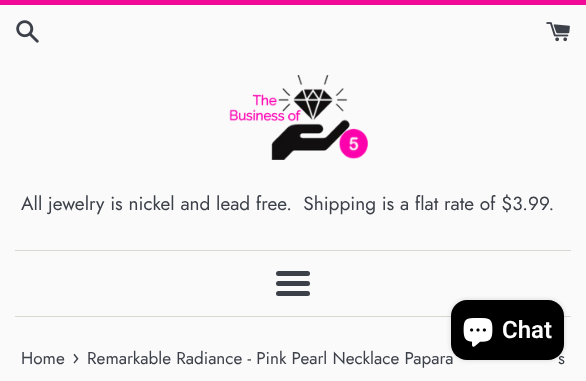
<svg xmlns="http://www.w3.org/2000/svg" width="586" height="381">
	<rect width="100%" height="100%" fill="#FAFAFA" />
	<rect x="0" y="0" width="586" height="5" fill="#F10A97" />
	<image x="16" y="20" width="23" height="23" href="assets/img1.png" />
	<image x="546" y="22" width="24" height="20" href="assets/img2.png" />
	<image x="229" y="75" width="139" height="85" href="assets/img3.png" />
	<text x="21" y="210" font-family="Jost" font-size="19" fill="#3C4049" xml:space="preserve">All jewelry is nickel and lead free.  Shipping is a flat rate of $3.99.</text>
	<rect x="15" y="316" width="556" height="1" fill="#D7D8D2" />
	<rect x="451" y="300" width="113" height="60" rx="16" fill="#000000" fill-opacity="0.15" filter="blur(2.5px)" />
	<g font-family="Jost" font-size="17.1" fill="#3C4049">
		<text x="87" y="364">Remarkable Radiance - Pink Pearl Necklace Papara</text>
		<text x="558" y="364">s</text>
	</g>
	<rect x="451" y="300" width="113" height="60" rx="16" fill="#000000" />
	<image x="463" y="318" width="30" height="29" href="assets/img4.png" />
	<text x="502" y="338" font-family="Roboto" font-size="24" font-weight="600" fill="#FFFFFF">Chat</text>
	<rect x="15" y="250" width="556" height="1" fill="#D7D8D2" />
	<rect x="276" y="271" width="34" height="5" rx="2.5" fill="#3C4049" />
	<rect x="276" y="281" width="34" height="5" rx="2.5" fill="#3C4049" />
	<rect x="276" y="291" width="34" height="5" rx="2.5" fill="#3C4049" />
	<text x="21" y="364" font-family="Jost" font-size="17.1" fill="#3C4049">Home</text>
	<text x="72" y="364" font-family="Jost" font-size="21" fill="#3C4049">›</text>
</svg>
